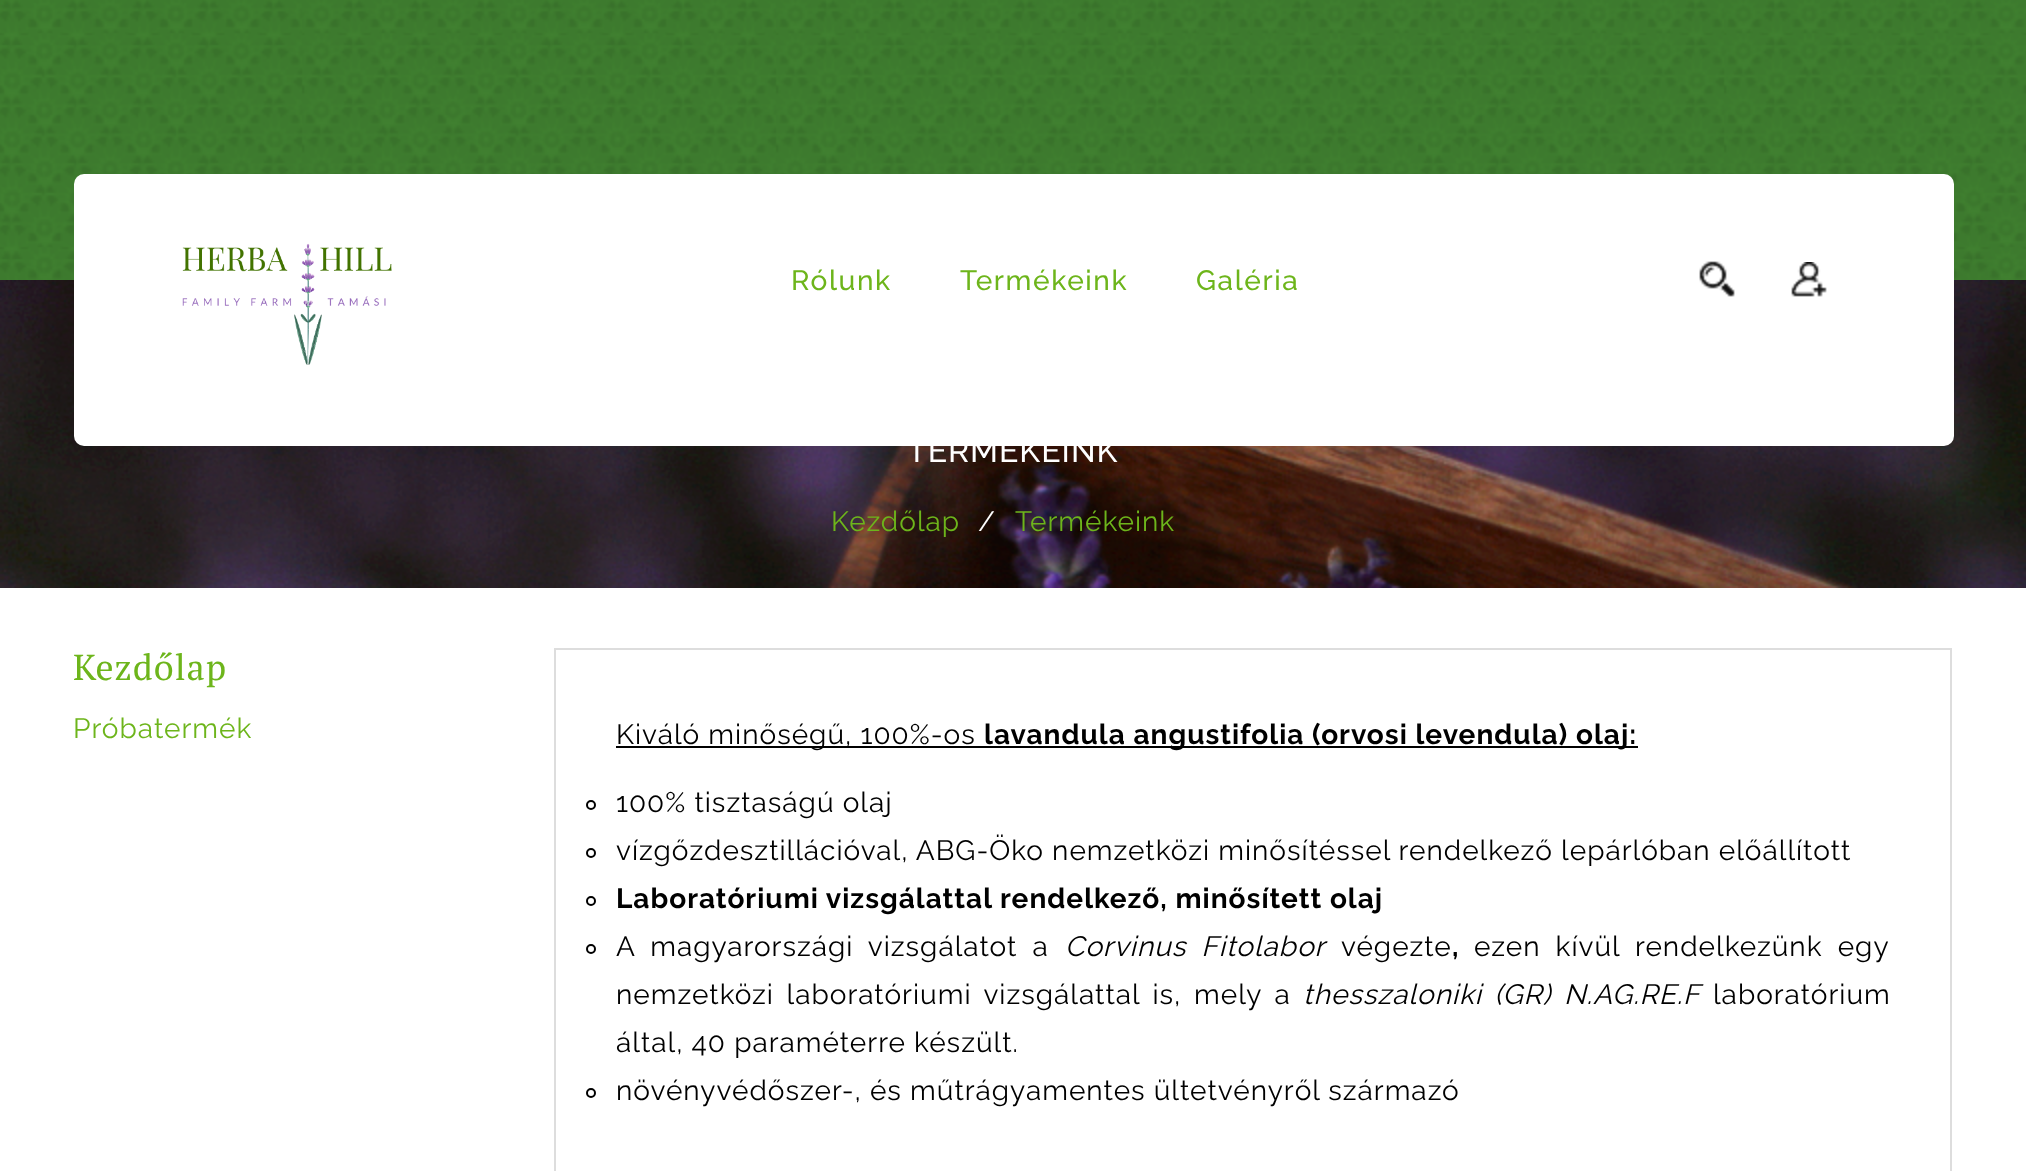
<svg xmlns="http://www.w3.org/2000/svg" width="2026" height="1171">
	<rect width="100%" height="100%" fill="#FFFFFF" />
	<image x="0" y="0" width="2026" height="280" href="assets/img1.png" />
	<image x="0" y="280" width="2026" height="308" href="assets/img5.png" />
	<rect x="74" y="174" width="1880" height="272" rx="10" fill="#FFFFFF" />
	<image x="182" y="243" width="210" height="122" href="assets/img2.png" />
	<g font-family="Raleway" font-size="28" font-weight="500" letter-spacing="1.6" fill="#6DB51B">
		<text x="791" y="290">Rólunk</text>
		<text x="960" y="290">Termékeink</text>
		<text x="1196" y="290">Galéria</text>
	</g>
	<image x="1699" y="261" width="36" height="36" href="assets/img3.png" />
	<image x="1791" y="262" width="36" height="35" href="assets/img4.png" />
	<text x="907" y="462" font-family="Raleway" font-size="32" font-weight="500" letter-spacing="1" fill="#FFFFFF">TERMÉKEINK</text>
	<text x="831" y="531" font-family="Raleway" font-size="28" letter-spacing="1" fill="#6DB51B">Kezdőlap</text>
	<text x="978" y="531" font-family="Raleway" font-size="28" letter-spacing="1" fill="#FFFFFF">/</text>
	<text x="1015" y="531" font-family="Raleway" font-size="28" letter-spacing="1" fill="#6DB51B">Termékeink</text>
	<text x="73" y="680" font-family="PT Serif" font-size="36" letter-spacing="1" fill="#6DB51B">Kezdőlap</text>
	<text x="73" y="738" font-family="Raleway" font-size="28" letter-spacing="1" fill="#6DB51B">Próbatermék</text>
	<rect x="555" y="649" width="1396" height="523" fill="none" stroke="#DDDDDD" stroke-width="2" />
	<rect x="616" y="746" width="1022" height="2" fill="#000000" />
	<text x="616" y="744" font-family="Raleway" font-size="28" letter-spacing="1" fill="#000000">Kiváló minőségű, 100%-os</text>
	<text x="984" y="744" font-family="Raleway" font-size="28" font-weight="700" letter-spacing="1" fill="#000000">lavandula angustifolia (orvosi levendula) olaj:</text>
	<circle cx="591" cy="805" r="4" fill="none" stroke="#000000" stroke-width="2" />
	<text x="616" y="812" font-family="Raleway" font-size="28" letter-spacing="1" fill="#000000">100% tisztaságú olaj</text>
	<circle cx="591" cy="853" r="4" fill="none" stroke="#000000" stroke-width="2" />
	<text x="616" y="860" font-family="Raleway" font-size="28" letter-spacing="1" fill="#000000">vízgőzdesztillációval, ABG-Öko nemzetközi minősítéssel rendelkező lepárlóban előállított</text>
	<circle cx="591" cy="901" r="4" fill="none" stroke="#000000" stroke-width="2" />
	<text x="616" y="908" font-family="Raleway" font-size="28" font-weight="700" letter-spacing="1" fill="#000000">Laboratóriumi vizsgálattal rendelkező, minősített olaj</text>
	<circle cx="591" cy="949" r="4" fill="none" stroke="#000000" stroke-width="2" />
	<text x="616" y="956" word-spacing="7" font-family="Raleway" font-size="28" letter-spacing="1" fill="#000000">A magyarországi vizsgálatot a</text>
	<text x="1065" y="956" word-spacing="7" font-family="Raleway" font-size="28" font-style="italic" letter-spacing="1" fill="#000000">Corvinus Fitolabor</text>
	<g font-family="Raleway" font-size="28" letter-spacing="1" fill="#000000">
		<text x="1341" y="956">végezte</text>
		<text x="1474" y="956" word-spacing="7">ezen kívül rendelkezünk egy</text>
	</g>
	<text x="1452" y="956" font-family="Raleway" font-size="28" font-weight="700" letter-spacing="1" fill="#000000">,</text>
	<text x="616" y="1004" word-spacing="4.5" font-family="Raleway" font-size="28" letter-spacing="1" fill="#000000">nemzetközi laboratóriumi vizsgálattal is, mely a</text>
	<text x="1303" y="1004" word-spacing="4.5" font-family="Raleway" font-size="28" font-style="italic" letter-spacing="1" fill="#000000">thesszaloniki (GR) N.AG.RE.F</text>
	<g font-family="Raleway" font-size="28" letter-spacing="1" fill="#000000">
		<text x="1713" y="1004">laboratórium</text>
		<text x="616" y="1052">által, 40 paraméterre készült.</text>
	</g>
	<circle cx="591" cy="1093" r="4" fill="none" stroke="#000000" stroke-width="2" />
	<text x="616" y="1100" font-family="Raleway" font-size="28" letter-spacing="1" fill="#000000">növényvédőszer-, és műtrágyamentes ültetvényről származó</text>
</svg>
